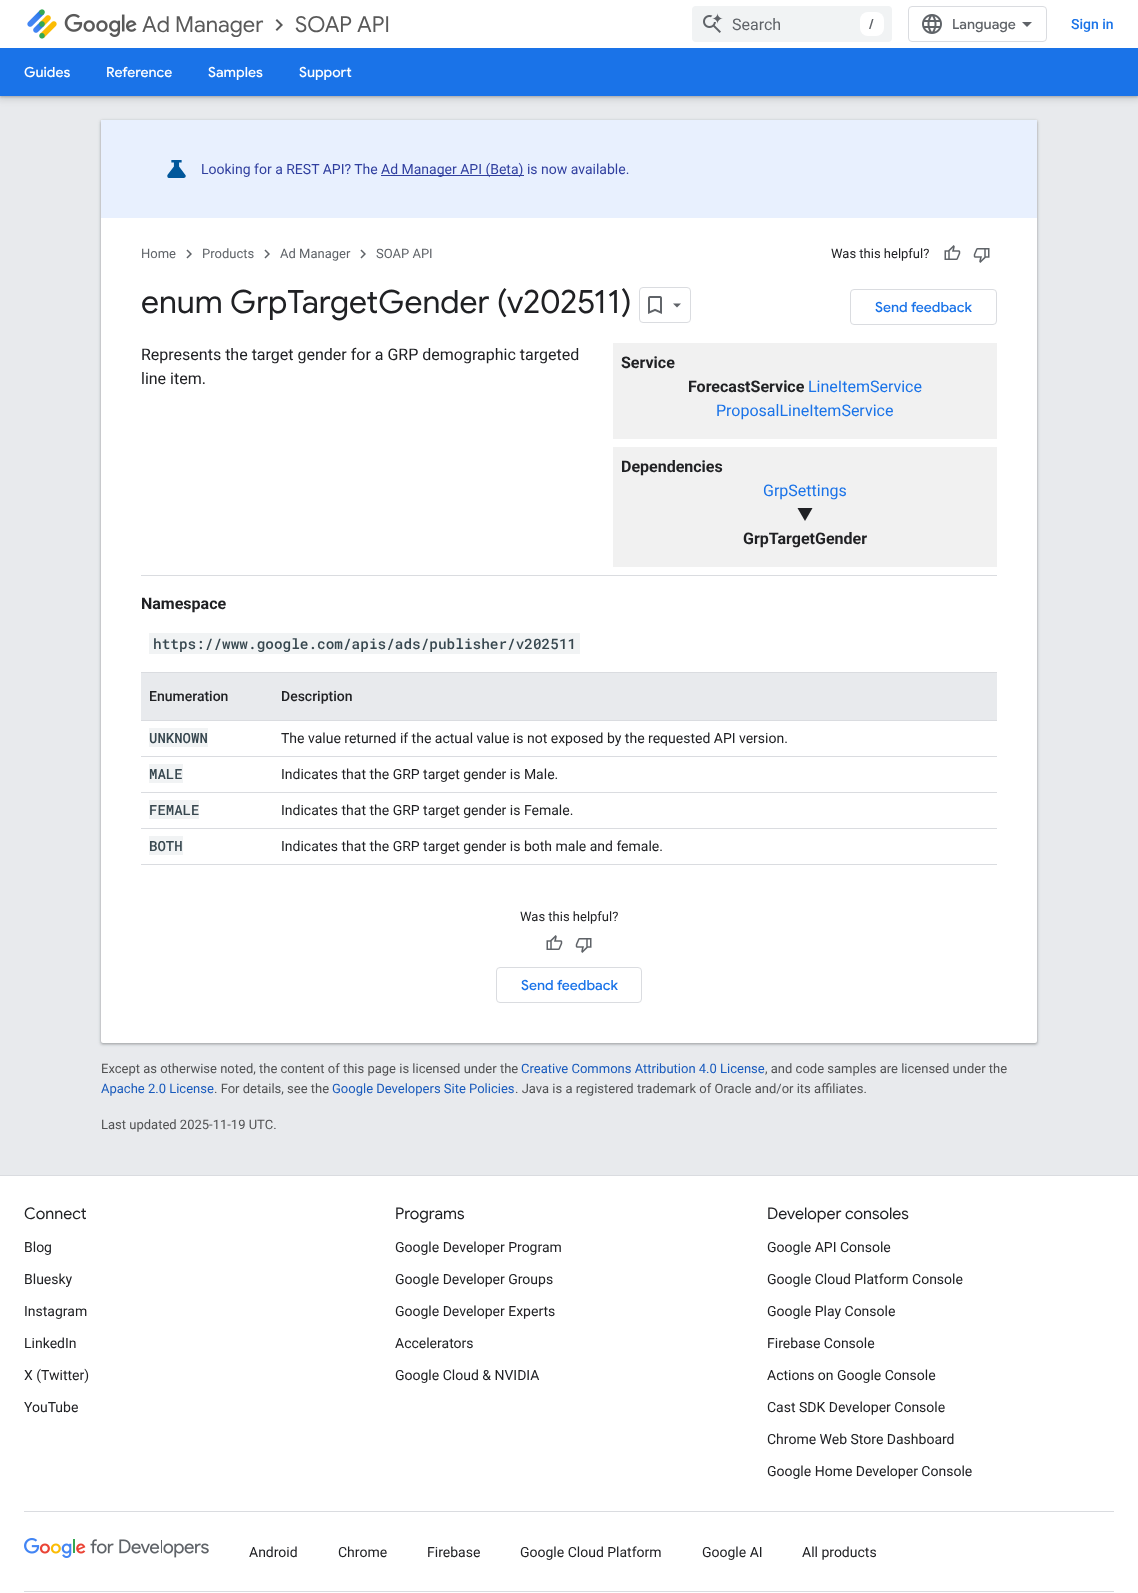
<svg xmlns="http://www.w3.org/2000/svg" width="1138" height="1593">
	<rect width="100%" height="100%" fill="#E8EAED" />
	<rect x="-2" y="48" width="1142" height="52" fill="#3C4043" fill-opacity="0.15" filter="blur(3px)" />
	<rect x="0" y="49" width="1138" height="48" fill="#3C4043" fill-opacity="0.3" filter="blur(1px)" />
	<rect x="0" y="0" width="1138" height="48" fill="#FFFFFF" />
	<image x="27" y="9" width="30" height="30" href="assets/img1.png" />
	<image x="64" y="13" width="73" height="24" href="assets/img2.png" />
	<text x="142" y="32" font-family="Google Sans" font-size="22" fill="#595959">Ad Manager</text>
	<image x="275" y="19" width="8" height="12" href="assets/img3.png" />
	<text x="295" y="32" font-family="Google Sans" font-size="22" fill="#595959">SOAP API</text>
	<rect x="692" y="6" width="200" height="36" rx="4" fill="#F1F3F4" />
	<image x="703" y="13" width="20" height="20" href="assets/img4.png" />
	<text x="732" y="30" font-family="Roboto" font-size="16" fill="#5F6368">Search</text>
	<rect x="860" y="12" width="24" height="24" rx="8" fill="#FFFFFF" />
	<text x="869" y="29" font-family="Google Sans" font-size="14" font-weight="500" fill="#5F6368">/</text>
	<rect x="908.5" y="6.5" width="138" height="35" rx="3.5" fill="none" stroke="#DADCE0" />
	<image x="922" y="14" width="20" height="20" href="assets/img5.png" />
	<text x="952" y="29" font-family="Google Sans" font-size="14" font-weight="500" fill="#5F6368">Language</text>
	<path d="M1027 27L1022 22H1032Z" fill="#5F6368" />
	<text x="1071" y="29" font-family="Roboto" font-size="14" font-weight="500" fill="#1A73E8">Sign in</text>
	<rect x="0" y="48" width="1138" height="48" fill="#1A73E8" />
	<g font-family="Google Sans" font-size="14" font-weight="500" fill="#FFFFFF">
		<text x="24" y="77">Guides</text>
		<text x="106" y="77">Reference</text>
		<text x="208" y="77">Samples</text>
		<text x="299" y="77">Support</text>
	</g>
	<rect x="100" y="120" width="938" height="925" rx="3" fill="#3C4043" fill-opacity="0.15" filter="blur(1.5px)" />
	<rect x="101" y="121" width="936" height="923" rx="2" fill="#3C4043" fill-opacity="0.3" filter="blur(1px)" />
	<rect x="101" y="120" width="936" height="923" rx="2" fill="#FFFFFF" />
	<rect x="101" y="120" width="936" height="98" fill="#E8F0FE" />
	<image x="167" y="160" width="19" height="18" href="assets/img6.png" />
	<text x="201" y="174" font-family="Roboto" font-size="14" fill="#303F9F">Looking for a REST API? The</text>
	<rect x="381" y="175" width="143" height="1" fill="#303F9F" />
	<text x="381" y="174" font-family="Roboto" font-size="14" fill="#303F9F">Ad Manager API (Beta) is now available.</text>
	<text x="141" y="258" font-family="Roboto" font-size="13" fill="#5F6368">Home</text>
	<image x="186" y="249" width="6" height="10" href="assets/img7.png" />
	<text x="202" y="258" font-family="Roboto" font-size="13" fill="#5F6368">Products</text>
	<image x="264" y="249" width="6" height="10" href="assets/img7.png" />
	<text x="280" y="258" font-family="Roboto" font-size="13" fill="#5F6368">Ad Manager</text>
	<image x="360" y="249" width="6" height="10" href="assets/img7.png" />
	<text x="376" y="258" font-family="Roboto" font-size="13" fill="#5F6368">SOAP API</text>
	<text x="831" y="258" font-family="Roboto" font-size="13" fill="#202124">Was this helpful?</text>
	<image x="944" y="245" width="17" height="15" href="assets/img8.png" />
	<image x="973" y="248" width="17" height="15" href="assets/img9.png" />
	<text x="141" y="313" font-family="Google Sans" font-size="32" fill="#202124">enum GrpTargetGender (v202511)</text>
	<rect x="639.5" y="287.5" width="51" height="35" rx="3.5" fill="none" stroke="#DADCE0" />
	<image x="648" y="296" width="14" height="18" href="assets/img10.png" />
	<path d="M673 303.5H681L677 307.5Z" fill="#5F6368" />
	<rect x="850.5" y="289.5" width="146" height="35" rx="3.5" fill="none" stroke="#DADCE0" />
	<text x="875" y="312" font-family="Google Sans" font-size="14" font-weight="500" fill="#1A73E8">Send feedback</text>
	<g font-family="Roboto" font-size="16" fill="#202124">
		<text x="141" y="360">Represents the target gender for a GRP demographic targeted</text>
		<text x="141" y="384">line item.</text>
	</g>
	<rect x="613" y="343" width="384" height="96" fill="#F1F1F1" />
	<g font-family="Roboto" font-size="16" font-weight="700" fill="#202124">
		<text x="621" y="368">Service</text>
		<text x="688" y="392">ForecastService</text>
	</g>
	<g font-family="Roboto" font-size="16" fill="#1A73E8">
		<text x="808" y="392">LineItemService</text>
		<text x="716" y="416">ProposalLineItemService</text>
	</g>
	<rect x="613" y="447" width="384" height="120" fill="#F1F1F1" />
	<text x="621" y="472" font-family="Roboto" font-size="16" font-weight="700" fill="#202124">Dependencies</text>
	<text x="763" y="496" font-family="Roboto" font-size="16" fill="#1A73E8">GrpSettings</text>
	<text x="797" y="520" font-family="Noto Sans JP" font-size="16" fill="#202124">▼</text>
	<text x="743" y="544" font-family="Roboto" font-size="16" font-weight="700" fill="#202124">GrpTargetGender</text>
	<rect x="141" y="575" width="856" height="1" fill="#DADCE0" />
	<text x="141" y="609" font-family="Roboto" font-size="16" font-weight="700" fill="#202124">Namespace</text>
	<rect x="149" y="633" width="431" height="21" fill="#F1F3F4" />
	<text x="153" y="649" font-family="Roboto Mono" font-size="14.4" font-weight="500" fill="#37474F">https://www.google.com/apis/ads/publisher/v202511</text>
	<rect x="141" y="672" width="856" height="1" fill="#DADCE0" />
	<rect x="141" y="673" width="856" height="47" fill="#E8EAED" />
	<g font-family="Roboto" font-size="14" font-weight="500" fill="#202124">
		<text x="149" y="701">Enumeration</text>
		<text x="281" y="701">Description</text>
	</g>
	<rect x="141" y="720" width="856" height="1" fill="#DADCE0" />
	<rect x="141" y="756" width="856" height="1" fill="#DADCE0" />
	<rect x="149" y="728" width="59" height="19" fill="#F1F3F4" />
	<text x="149" y="743" font-family="Roboto Mono" font-size="14" font-weight="500" fill="#37474F">UNKNOWN</text>
	<text x="281" y="743" font-family="Roboto" font-size="14" fill="#202124">The value returned if the actual value is not exposed by the requested API version.</text>
	<rect x="141" y="792" width="856" height="1" fill="#DADCE0" />
	<rect x="149" y="764" width="34" height="19" fill="#F1F3F4" />
	<text x="149" y="779" font-family="Roboto Mono" font-size="14" font-weight="500" fill="#37474F">MALE</text>
	<text x="281" y="779" font-family="Roboto" font-size="14" fill="#202124">Indicates that the GRP target gender is Male.</text>
	<rect x="141" y="828" width="856" height="1" fill="#DADCE0" />
	<rect x="149" y="800" width="50" height="19" fill="#F1F3F4" />
	<text x="149" y="815" font-family="Roboto Mono" font-size="14" font-weight="500" fill="#37474F">FEMALE</text>
	<text x="281" y="815" font-family="Roboto" font-size="14" fill="#202124">Indicates that the GRP target gender is Female.</text>
	<rect x="141" y="864" width="856" height="1" fill="#DADCE0" />
	<rect x="149" y="836" width="34" height="19" fill="#F1F3F4" />
	<text x="149" y="851" font-family="Roboto Mono" font-size="14" font-weight="500" fill="#37474F">BOTH</text>
	<text x="281" y="851" font-family="Roboto" font-size="14" fill="#202124">Indicates that the GRP target gender is both male and female.</text>
	<text x="520" y="921" font-family="Roboto" font-size="13" fill="#202124">Was this helpful?</text>
	<image x="546" y="935" width="17" height="15" href="assets/img8.png" />
	<image x="575" y="938" width="17" height="15" href="assets/img9.png" />
	<rect x="496.5" y="967.5" width="145" height="35" rx="3.5" fill="none" stroke="#DADCE0" />
	<text x="521" y="990" font-family="Google Sans" font-size="14" font-weight="500" fill="#1A73E8">Send feedback</text>
	<text x="101" y="1073" font-family="Roboto" font-size="13" fill="#515253">Except as otherwise noted, the content of this page is licensed under the</text>
	<text x="521" y="1073" font-family="Roboto" font-size="13" fill="#185ABC">Creative Commons Attribution 4.0 License</text>
	<text x="765" y="1073" font-family="Roboto" font-size="13" fill="#515253">, and code samples are licensed under the</text>
	<text x="101" y="1093" font-family="Roboto" font-size="13" fill="#185ABC">Apache 2.0 License</text>
	<text x="214" y="1093" font-family="Roboto" font-size="13" fill="#515253">. For details, see the</text>
	<text x="332" y="1093" font-family="Roboto" font-size="13" fill="#185ABC">Google Developers Site Policies</text>
	<g font-family="Roboto" font-size="13" fill="#515253">
		<text x="515" y="1093">. Java is a registered trademark of Oracle and/or its affiliates.</text>
		<text x="101" y="1129">Last updated 2025-11-19 UTC.</text>
	</g>
	<rect x="0" y="1175" width="1138" height="1" fill="#DADCE0" />
	<rect x="0" y="1176" width="1138" height="417" fill="#FFFFFF" />
	<rect x="24" y="1511" width="1090" height="1" fill="#DADCE0" />
	<text x="24" y="1219" font-family="Google Sans" font-size="16" fill="#202124">Connect</text>
	<g font-family="Roboto" font-size="14" fill="#202124">
		<text x="24" y="1252">Blog</text>
		<text x="24" y="1284">Bluesky</text>
		<text x="24" y="1316">Instagram</text>
		<text x="24" y="1348">LinkedIn</text>
		<text x="24" y="1380">X (Twitter)</text>
		<text x="24" y="1412">YouTube</text>
	</g>
	<text x="395" y="1219" font-family="Google Sans" font-size="16" fill="#202124">Programs</text>
	<g font-family="Roboto" font-size="14" fill="#202124">
		<text x="395" y="1252">Google Developer Program</text>
		<text x="395" y="1284">Google Developer Groups</text>
		<text x="395" y="1316">Google Developer Experts</text>
		<text x="395" y="1348">Accelerators</text>
		<text x="395" y="1380">Google Cloud &amp; NVIDIA</text>
	</g>
	<text x="767" y="1219" font-family="Google Sans" font-size="16" fill="#202124">Developer consoles</text>
	<g font-family="Roboto" font-size="14" fill="#202124">
		<text x="767" y="1252">Google API Console</text>
		<text x="767" y="1284">Google Cloud Platform Console</text>
		<text x="767" y="1316">Google Play Console</text>
		<text x="767" y="1348">Firebase Console</text>
		<text x="767" y="1380">Actions on Google Console</text>
		<text x="767" y="1412">Cast SDK Developer Console</text>
		<text x="767" y="1444">Chrome Web Store Dashboard</text>
		<text x="767" y="1476">Google Home Developer Console</text>
	</g>
	<rect x="24" y="1591" width="1090" height="1" fill="#DADCE0" />
	<image x="24" y="1538" width="185" height="20" href="assets/img11.png" />
	<g font-family="Roboto" font-size="14" fill="#202124">
		<text x="249" y="1557">Android</text>
		<text x="338" y="1557">Chrome</text>
		<text x="427" y="1557">Firebase</text>
		<text x="520" y="1557">Google Cloud Platform</text>
		<text x="702" y="1557">Google AI</text>
		<text x="802" y="1557">All products</text>
	</g>
</svg>
